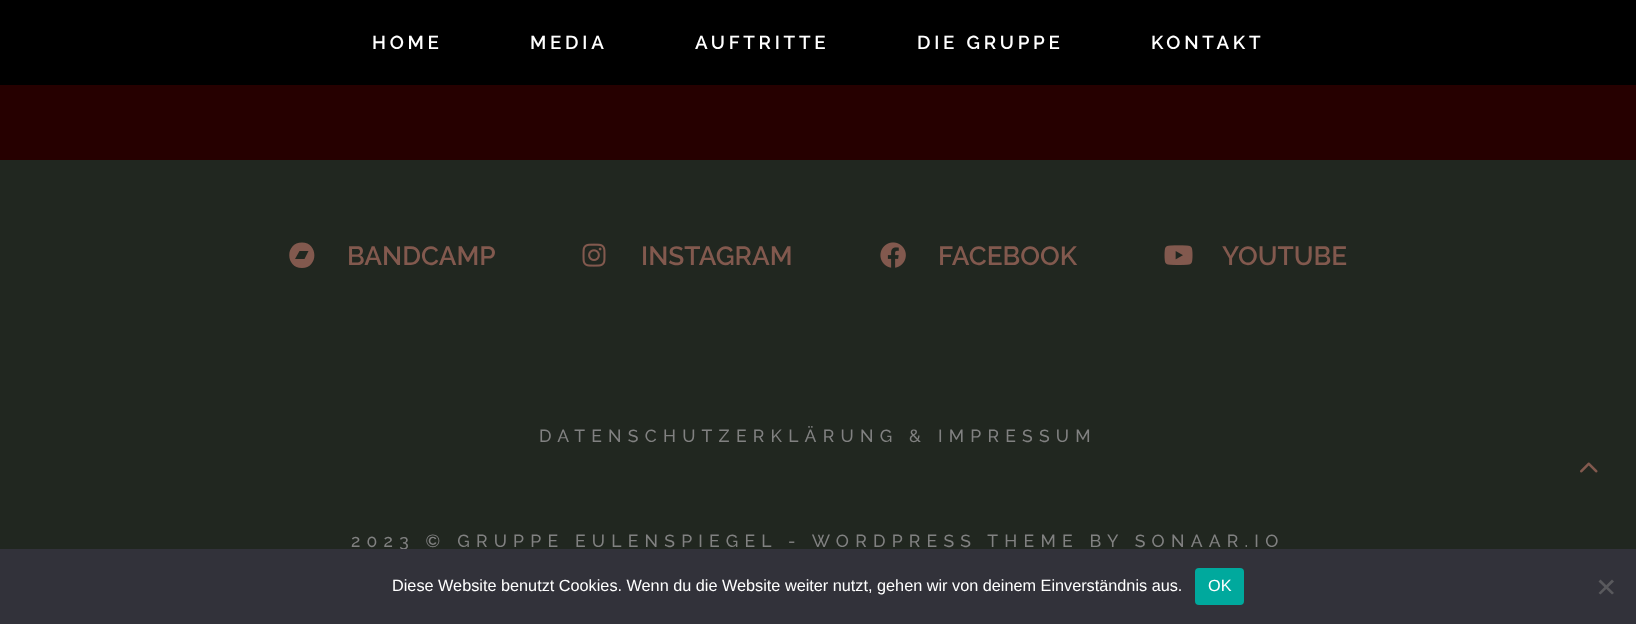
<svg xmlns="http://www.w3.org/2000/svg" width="1636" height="624">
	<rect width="100%" height="100%" fill="#260000" />
	<rect x="0" y="0" width="1636" height="85" fill="#000000" />
	<g font-family="Raleway" font-size="18.75" font-weight="600" letter-spacing="3.75" fill="#FFFFFF">
		<text x="372" y="49">HOME</text>
		<text x="530" y="49">MEDIA</text>
		<text x="695" y="49">AUFTRITTE</text>
		<text x="917" y="49">DIE GRUPPE</text>
		<text x="1151" y="49">KONTAKT</text>
	</g>
	<rect x="0" y="160" width="1636" height="389" fill="#212720" />
	<path d="M302 242.5C318.5 242.5 318.5 268 302 268C285 268 285 242.5 302 242.5ZM304.5 259L308.5 251H299.5L295 259Z" fill="#82594E" />
	<text x="347" y="265" font-family="Raleway" font-size="26.25" font-weight="600" fill="#82594E">BANDCAMP</text>
	<image x="582" y="243" width="24" height="24" href="assets/img1.png" />
	<text x="641" y="265" font-family="Raleway" font-size="26.25" font-weight="600" fill="#82594E">INSTAGRAM</text>
	<image x="880" y="242" width="26" height="26" href="assets/img2.png" />
	<text x="938" y="265" font-family="Raleway" font-size="26.25" font-weight="600" fill="#82594E">FACEBOOK</text>
	<image x="1164" y="245" width="29" height="20" href="assets/img3.png" />
	<text x="1222" y="265" font-family="Raleway" font-size="26.25" font-weight="600" fill="#82594E">YOUTUBE</text>
	<g font-family="Raleway" font-size="17.5" font-weight="500" letter-spacing="6.25" fill="#818181">
		<text x="539" y="442">DATENSCHUTZERKLÄRUNG &amp; IMPRESSUM</text>
		<text x="351" y="547">2023 © GRUPPE EULENSPIEGEL - WORDPRESS THEME BY SONAAR.IO</text>
	</g>
	<image x="1580" y="462" width="18" height="11" href="assets/img4.png" />
	<rect x="0" y="549" width="1636" height="75" fill="#32323A" />
	<text x="392" y="591" font-family="Liberation Sans" font-size="16.25" fill="#FFFFFF">Diese Website benutzt Cookies. Wenn du die Website weiter nutzt, gehen wir von deinem Einverständnis aus.</text>
	<rect x="1195" y="568" width="49" height="37" rx="4" fill="#00A99D" />
	<text x="1208" y="591" font-family="Liberation Sans" font-size="16.25" fill="#FFFFFF">OK</text>
	<path d="M1612 579.5L1614 581.5L1600.5 594.5L1598.5 593Z" fill="#59595D" />
	<path d="M1598.5 581.5L1600.5 579.5L1614 593L1612 594.5Z" fill="#59595D" />
</svg>
